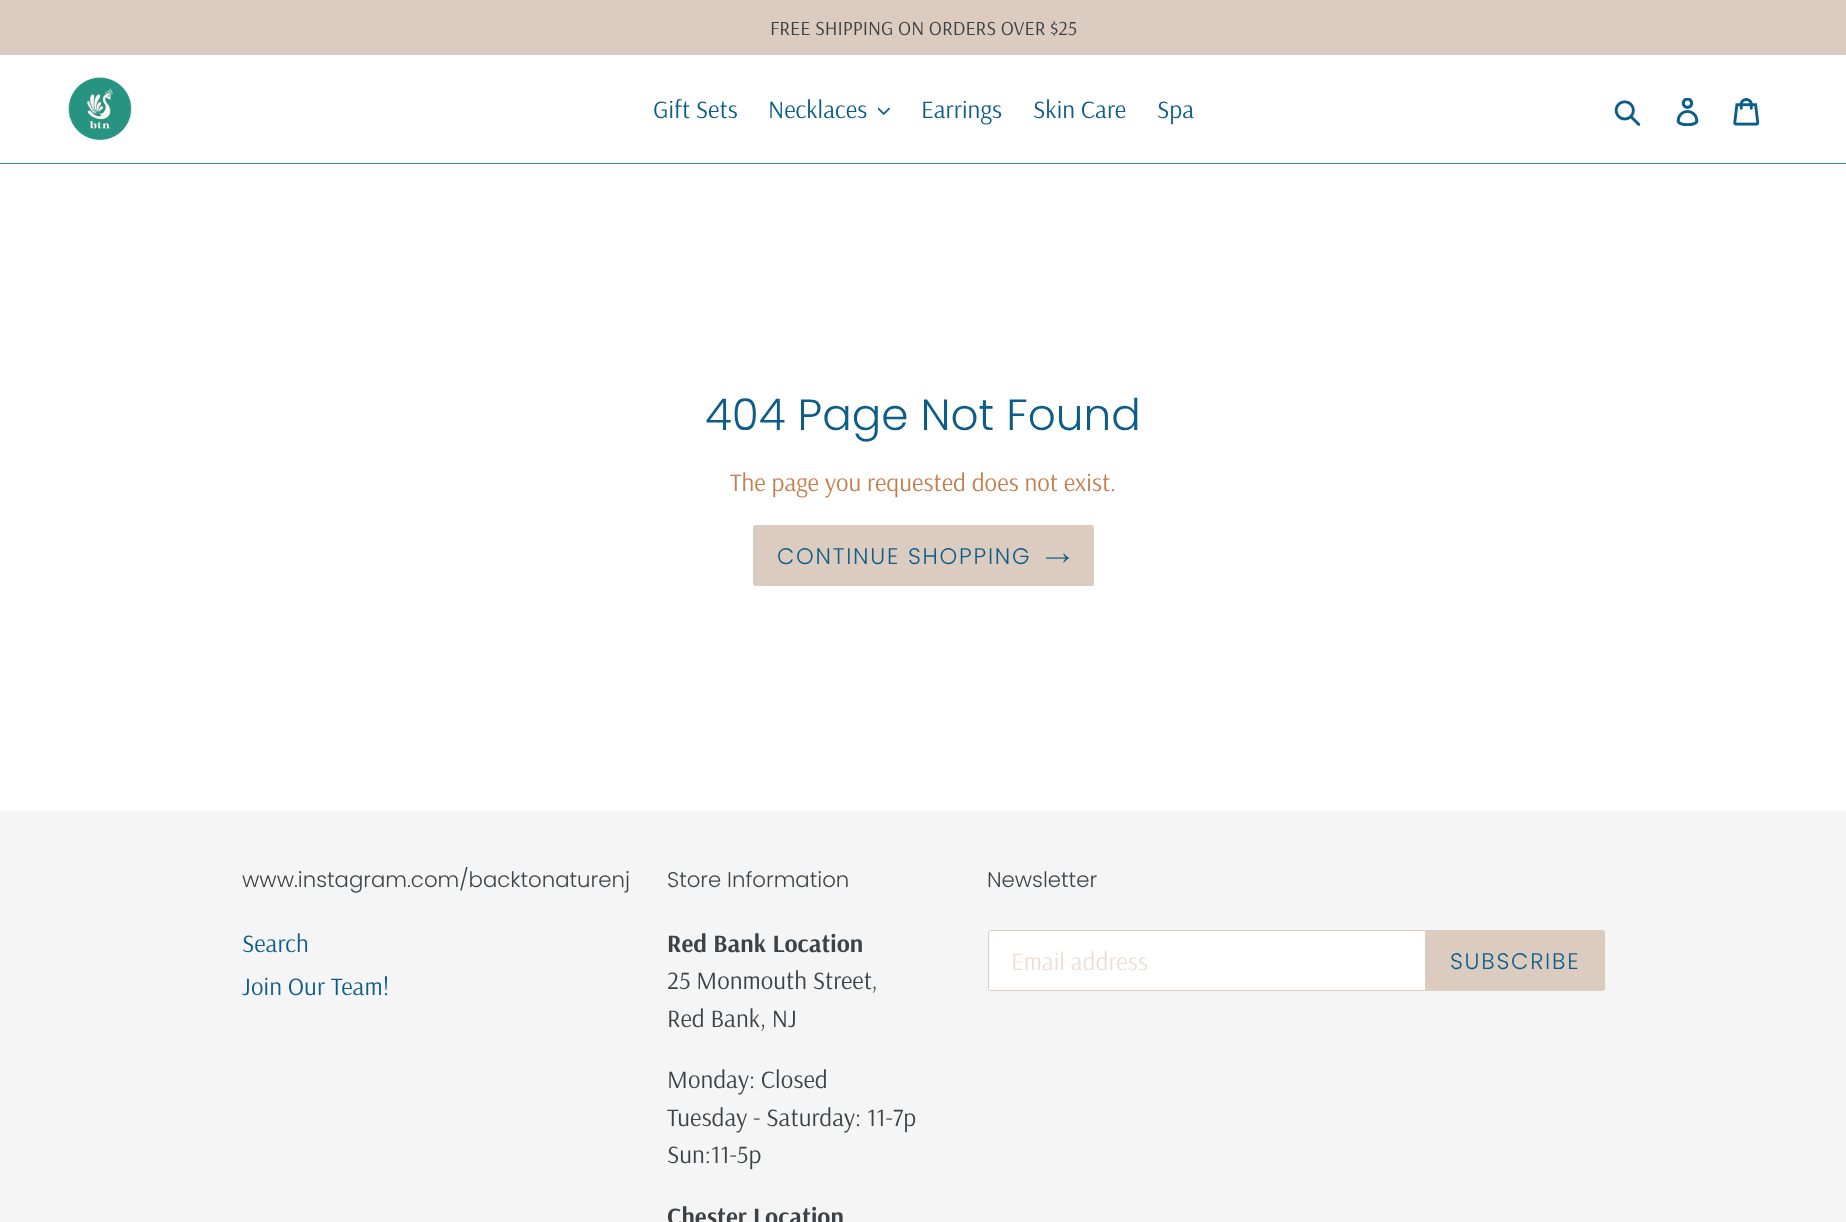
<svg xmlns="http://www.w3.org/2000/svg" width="1846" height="1222">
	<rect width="100%" height="100%" fill="#FFFFFF" />
	<rect x="0" y="0" width="1846" height="55" fill="#DCCBBF" />
	<text x="770" y="35" font-family="Arsenal" font-size="20" fill="#3D4246">FREE SHIPPING ON ORDERS OVER $25</text>
	<rect x="0" y="163" width="1846" height="1" fill="#2B9280" />
	<image x="68" y="77" width="64" height="63" href="assets/img1.png" />
	<g font-family="Arsenal" font-size="25" fill="#0C5D88">
		<text x="653" y="118">Gift Sets</text>
		<text x="768" y="118">Necklaces</text>
	</g>
	<image x="878" y="107" width="12" height="8" href="assets/img2.png" />
	<g font-family="Arsenal" font-size="25" fill="#0C5D88">
		<text x="921" y="118">Earrings</text>
		<text x="1033" y="118">Skin Care</text>
		<text x="1157" y="118">Spa</text>
	</g>
	<image x="1614" y="100" width="27" height="26" href="assets/img3.png" />
	<image x="1676" y="98" width="23" height="28" href="assets/img4.png" />
	<image x="1733" y="98" width="27" height="28" href="assets/img5.png" />
	<text x="705" y="430" font-family="Poppins" font-size="43.75" font-weight="300" fill="#0C5D88">404 Page Not Found</text>
	<text x="730" y="491" font-family="Arsenal" font-size="25" fill="#C67D4C">The page you requested does not exist.</text>
	<rect x="753" y="525" width="341" height="61" rx="2.5" fill="#DCCBBF" />
	<text x="777" y="564" font-family="Poppins" font-size="22.5" font-weight="300" letter-spacing="1.75" fill="#0C5D88">CONTINUE SHOPPING</text>
	<image x="1045" y="553" width="24" height="10" href="assets/img6.png" />
	<rect x="0" y="811" width="1846" height="411" fill="#F5F5F5" />
	<text x="242" y="887" font-family="Poppins" font-size="21.25" font-weight="300" fill="#3D4246">www.instagram.com/backtonaturenj</text>
	<g font-family="Arsenal" font-size="25" fill="#0C5D88">
		<text x="242" y="952">Search</text>
		<text x="242" y="995">Join Our Team!</text>
	</g>
	<text x="667" y="887" font-family="Poppins" font-size="21.25" font-weight="300" fill="#3D4246">Store Information</text>
	<text x="667" y="952" font-family="Arsenal" font-size="25" font-weight="700" fill="#3D4246">Red Bank Location</text>
	<g font-family="Arsenal" font-size="25" fill="#3D4246">
		<text x="667" y="989">25 Monmouth Street,</text>
		<text x="667" y="1027">Red Bank, NJ</text>
		<text x="667" y="1088">Monday: Closed</text>
		<text x="667" y="1126">Tuesday - Saturday: 11-7p</text>
		<text x="667" y="1163">Sun:11-5p</text>
	</g>
	<text x="667" y="1225" font-family="Arsenal" font-size="25" font-weight="700" fill="#3D4246">Chester Location</text>
	<text x="987" y="887" font-family="Poppins" font-size="21.25" font-weight="300" fill="#3D4246">Newsletter</text>
	<path d="M990.5 930.5H1425.5V990.5H990.5C989.5 990.5 988.5 989.5 988.5 988.5V932.5C988.5 931.5 989.5 930.5 990.5 930.5Z" fill="#FFFFFF" stroke="#DCCBBF" />
	<text x="1011" y="970" font-family="Arsenal" font-size="25" fill="#EAE0D9">Email address</text>
	<path d="M1426 930H1602.5C1604 930 1605 931 1605 932.5V988.5C1605 990 1604 991 1602.5 991H1426Z" fill="#DCCBBF" />
	<text x="1450" y="969" font-family="Poppins" font-size="22.5" font-weight="300" letter-spacing="1.75" fill="#0C5D88">SUBSCRIBE</text>
</svg>
